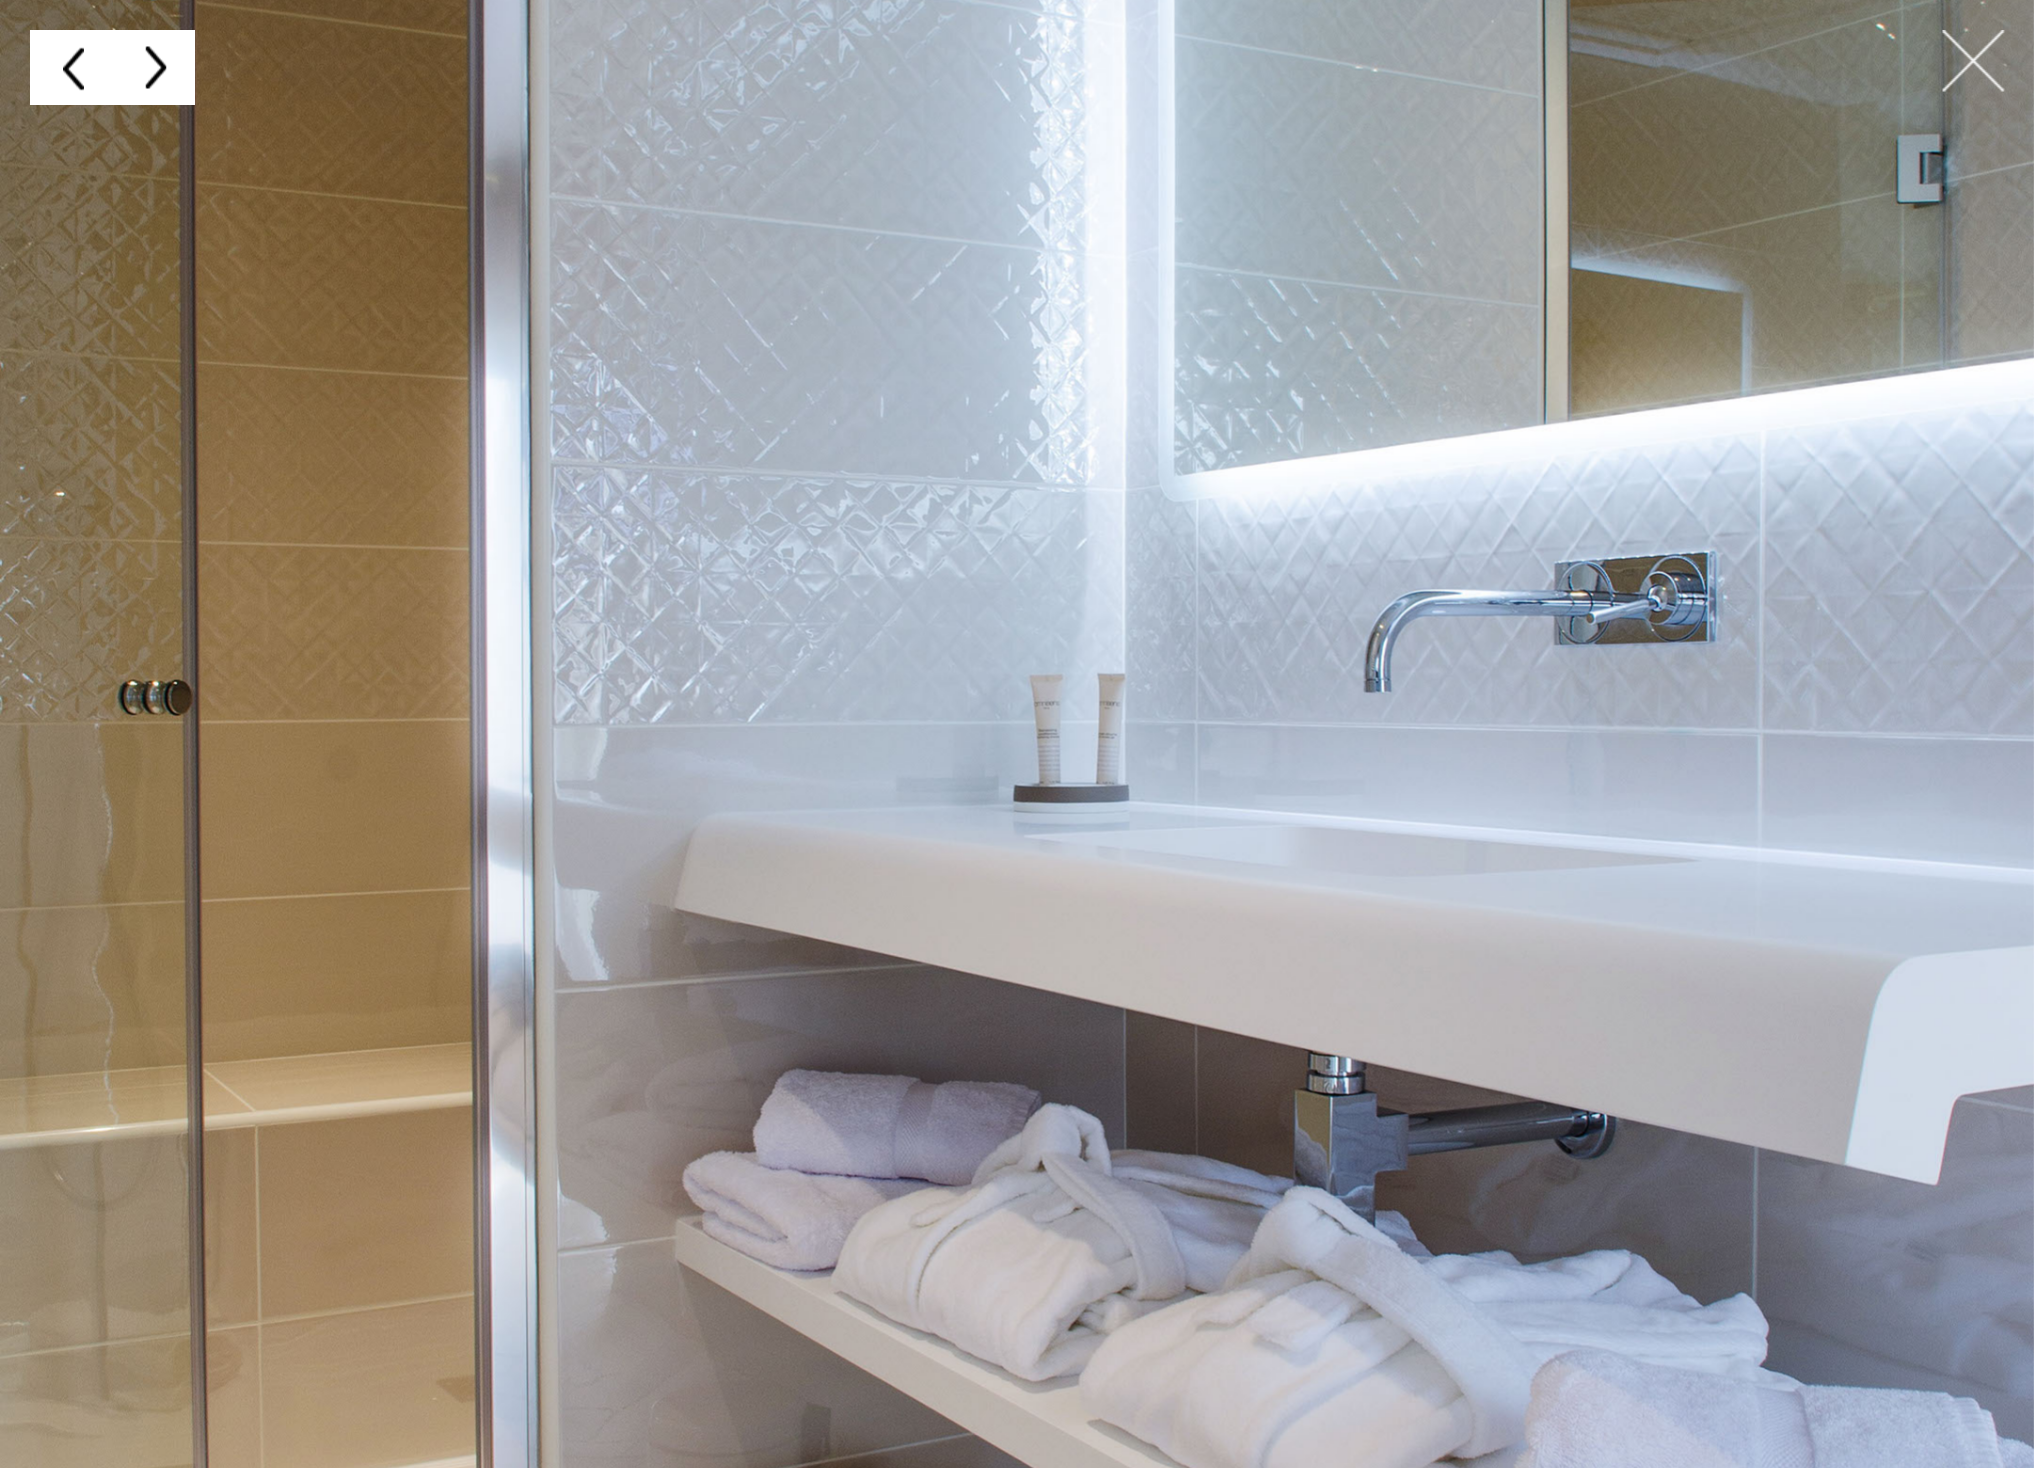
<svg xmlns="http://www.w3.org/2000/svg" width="2034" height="1468">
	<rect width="100%" height="100%" fill="#FFFFFF" />
	<image x="0" y="0" width="2034" height="1468" href="assets/img1.png" />
	<rect x="30" y="30" width="165" height="75" fill="#FFFFFF" />
	<image x="63" y="47" width="21" height="44" href="assets/img2.png" />
	<image x="145" y="46" width="22" height="43" href="assets/img3.png" />
	<image x="1942" y="30" width="63" height="62" href="assets/img4.png" />
</svg>
